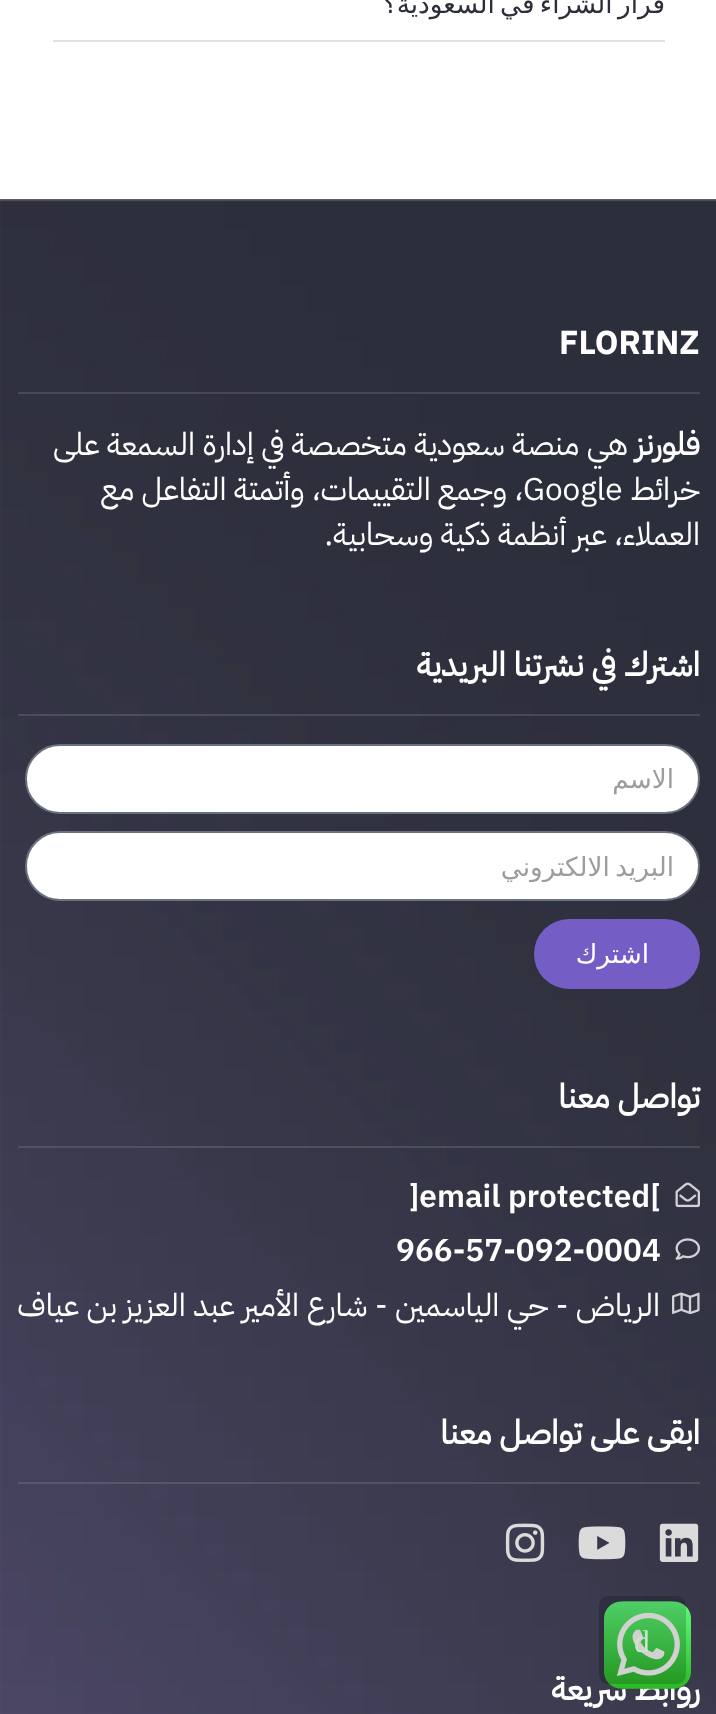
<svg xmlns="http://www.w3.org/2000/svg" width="716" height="1714">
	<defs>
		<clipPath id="clip1"><rect x="51" y="849" width="623" height="33" /></clipPath>
	</defs>
	<rect width="100%" height="100%" fill="#FFFFFF" />
	<rect x="53" y="40" width="612" height="2" fill="#E2E2E2" />
	<text x="665" y="13" word-spacing="-3" font-family="DejaVu Sans" font-size="26.25" direction="rtl" fill="#2C2E3A">قرار الشراء في السعودية؟</text>
	<image x="0" y="199" width="716" height="1515" href="assets/img1.png" />
	<text x="559" y="354" font-family="IBM Plex Sans Arabic" font-size="33.25" font-weight="700" fill="#FFFFFF">FLORINZ</text>
	<rect x="18" y="392" width="682" height="2" fill="#FFFFFF" fill-opacity="0.12" />
	<text x="700" y="455" font-family="'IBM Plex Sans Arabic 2'" font-size="31.5" font-weight="700" direction="rtl" fill="#FFFFFF">فلورنز</text>
	<g font-family="IBM Plex Sans Arabic" font-size="31.5" direction="rtl" fill="#FFFFFF">
		<text x="628" y="455">هي منصة سعودية متخصصة في إدارة السمعة على</text>
		<text x="700" y="500">خرائط</text>
	</g>
	<text x="523" y="500" font-family="IBM Plex Sans Arabic" font-size="31.5" fill="#FFFFFF">Google</text>
	<g font-family="IBM Plex Sans Arabic" font-size="31.5" direction="rtl" fill="#FFFFFF">
		<text x="523" y="500">، وجمع التقييمات، وأتمتة التفاعل مع</text>
		<text x="700" y="545">العملاء، عبر أنظمة ذكية وسحابية.</text>
	</g>
	<text x="700" y="676" font-family="'IBM Plex Sans Arabic 2'" font-size="33.25" font-weight="700" direction="rtl" fill="#FFFFFF">اشترك في نشرتنا البريدية</text>
	<rect x="18" y="714" width="682" height="2" fill="#FFFFFF" fill-opacity="0.12" />
	<rect x="26" y="745" width="673" height="68" rx="34" fill="#FFFFFF" stroke="#69727D" stroke-width="2" />
	<text x="674" y="788" font-family="DejaVu Sans" font-size="26.25" direction="rtl" fill="#9D9D9D">الاسم</text>
	<rect x="26" y="832" width="673" height="68" rx="34" fill="#FFFFFF" stroke="#69727D" stroke-width="2" />
	<g clip-path="url(#clip1)">
		<text x="674" y="876" word-spacing="-3" font-family="DejaVu Sans" font-size="26.25" direction="rtl" fill="#9D9D9D">البريد الالكتروني</text>
	</g>
	<rect x="534" y="919" width="166" height="70" rx="35" fill="#745EC5" />
	<text x="649" y="963" font-family="DejaVu Sans" font-size="26.25" direction="rtl" fill="#FFFFFF">اشترك</text>
	<text x="700" y="1108" font-family="'IBM Plex Sans Arabic 2'" font-size="33.25" font-weight="700" direction="rtl" fill="#FFFFFF">تواصل معنا</text>
	<rect x="18" y="1146" width="682" height="2" fill="#FFFFFF" fill-opacity="0.12" />
	<image x="675" y="1182" width="25" height="26" href="assets/img2.png" />
	<text x="409" y="1207" font-family="IBM Plex Sans Arabic" font-size="31.5" font-weight="600" fill="#FFFFFF">]email protected[</text>
	<image x="675" y="1238" width="25" height="22" href="assets/img3.png" />
	<text x="396" y="1261" font-family="IBM Plex Sans Arabic" font-size="31.5" font-weight="600" fill="#FFFFFF">966-57-092-0004</text>
	<image x="672" y="1292" width="28" height="22" href="assets/img4.png" />
	<text x="660" y="1316" font-family="'IBM Plex Sans Arabic 2'" font-size="31.5" direction="rtl" fill="#FFFFFF">الرياض - حي الياسمين - شارع الأمير عبد العزيز بن عياف</text>
	<text x="700" y="1444" font-family="'IBM Plex Sans Arabic 2'" font-size="33.25" font-weight="700" direction="rtl" fill="#FFFFFF">ابقى على تواصل معنا</text>
	<rect x="18" y="1482" width="682" height="2" fill="#FFFFFF" fill-opacity="0.12" />
	<image x="659" y="1523" width="40" height="39" href="assets/img5.png" />
	<image x="578" y="1526" width="48" height="34" href="assets/img6.png" />
	<image x="505" y="1523" width="40" height="39" href="assets/img7.png" />
	<text x="700" y="1700" font-family="'IBM Plex Sans Arabic 2'" font-size="33.25" font-weight="700" direction="rtl" fill="#FFFFFF">روابط سريعة</text>
	<image x="604" y="1601" width="87" height="88" href="assets/img8.png" />
	<rect x="599" y="1596" width="87" height="88" rx="9" fill="#000000" fill-opacity="0.18" />
	<text x="634" y="1652" font-family="Liberation Serif" font-size="31.5" fill="#CBE6CD">d</text>
</svg>
